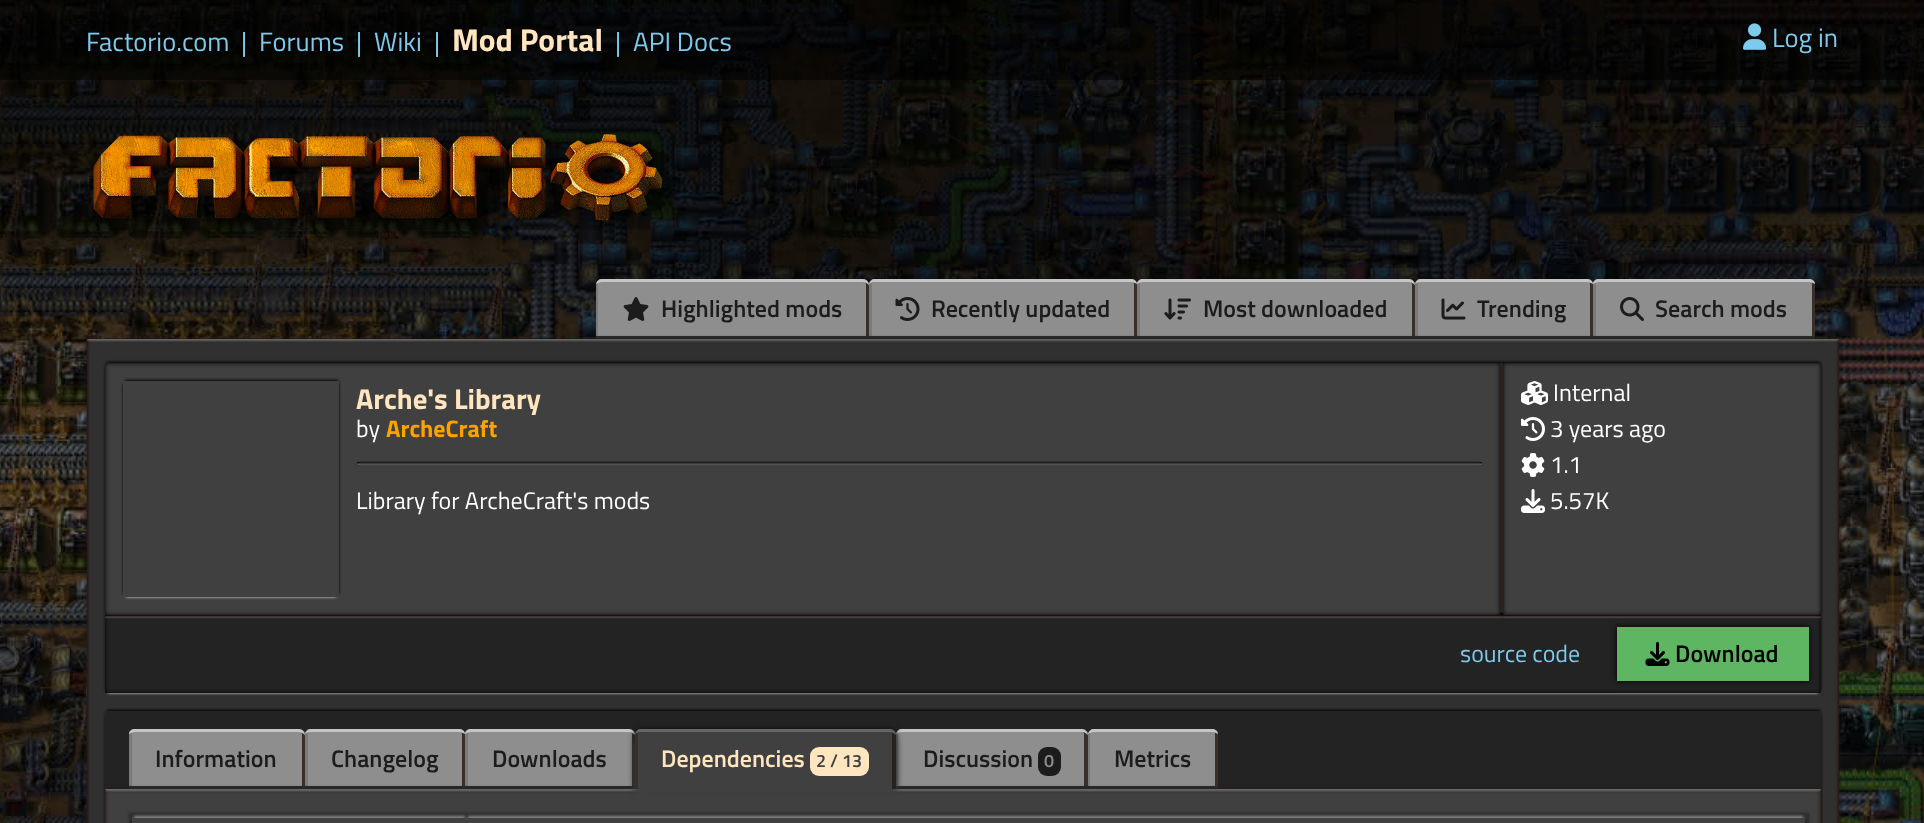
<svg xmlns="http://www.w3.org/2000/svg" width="1924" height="823">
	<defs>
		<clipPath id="clip1"><rect x="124" y="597" width="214" height="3" /></clipPath>
		<clipPath id="clip2"><rect x="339" y="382" width="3" height="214" /></clipPath>
		<clipPath id="clip3"><rect x="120" y="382" width="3" height="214" /></clipPath>
		<clipPath id="clip4"><path d="M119 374H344V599H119ZM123 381H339V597H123Z" clip-rule="evenodd" /></clipPath>
		<clipPath id="clip5"><rect x="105" y="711" width="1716" height="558" /></clipPath>
	</defs>
	<rect width="100%" height="100%" fill="#FFFFFF" />
	<image x="0" y="0" width="1924" height="823" href="assets/img1.png" />
	<rect x="0" y="0" width="1924" height="80" fill="#000000" fill-opacity="0.5" />
	<g font-family="Titillium Web" font-size="26.5" fill="#7DCAED">
		<text x="86" y="51">Factorio.com</text>
		<text x="241" y="51">|</text>
		<text x="259" y="51">Forums</text>
		<text x="356" y="51">|</text>
		<text x="374" y="51">Wiki</text>
		<text x="434" y="51">|</text>
	</g>
	<text x="452" y="51" font-family="Titillium Web" font-size="31.5" font-weight="700" fill="#FFE6C0">Mod Portal</text>
	<g font-family="Titillium Web" font-size="26.5" fill="#7DCAED">
		<text x="615" y="51">|</text>
		<text x="633" y="51">API Docs</text>
	</g>
	<image x="1743" y="23" width="24" height="27" href="assets/img2.png" />
	<text x="1772" y="47" font-family="Titillium Web" font-size="26.5" fill="#7DCAED">Log in</text>
	<image x="92" y="134" width="588" height="96" href="assets/img3.png" />
	<path d="M602 279H863C866.5 279 869 281.5 869 285V339H596V285C596 281.5 598.5 279 602 279Z" fill="#8E8E8E" />
	<path d="M866 339H869V285C869 282 866 279 863 279C865 281 866 283 866 285Z" fill="#372F2A" />
	<path d="M601 279C598 280 596 282 596 285V339H598V285C598 283 599 281 601 279Z" fill="#7A7A7A" />
	<rect x="596" y="336" width="273" height="3" fill="#2D2D2D" />
	<path d="M602 282H862C865 282 867 283 869 285C869 282 866 279 863 279H602C599 279 597 281 596 284C598 283 600 282 602 282Z" fill="#C5C5C5" />
	<image x="623" y="297" width="26" height="24" href="assets/img4.png" />
	<text x="661" y="317" font-family="Titillium Web" font-size="24" font-weight="600" fill="#1D1C1D">Highlighted mods</text>
	<path d="M875 279H1131C1134.5 279 1137 281.5 1137 285V339H869V285C869 281.5 871.5 279 875 279Z" fill="#8E8E8E" />
	<path d="M1134 339H1137V285C1137 282 1135 279 1132 279C1133 281 1134 283 1134 285Z" fill="#372F2A" />
	<path d="M874 279C871 279 869 282 869 285V339H872V285C872 283 873 281 874 279Z" fill="#7A7A7A" />
	<rect x="869" y="336" width="268" height="3" fill="#2D2D2D" />
	<path d="M874 282H1131C1133 282 1135 283 1137 284C1137 281 1134 279 1131 279H875C872 279 870 281 869 284C870 283 872 282 874 282Z" fill="#C5C5C5" />
	<image x="895" y="297" width="25" height="24" href="assets/img5.png" />
	<text x="931" y="317" font-family="Titillium Web" font-size="24" font-weight="600" fill="#1D1C1D">Recently updated</text>
	<path d="M1143 279H1409C1412.5 279 1415 281.5 1415 285V339H1137V285C1137 281.5 1139.5 279 1143 279Z" fill="#8E8E8E" />
	<path d="M1412 339H1415V285C1415 282 1412 279 1409 279C1411 281 1412 283 1412 285Z" fill="#372F2A" />
	<path d="M1142 279C1139 279 1137 282 1137 285V339H1140V285C1140 283 1141 281 1142 279Z" fill="#7A7A7A" />
	<rect x="1137" y="336" width="278" height="3" fill="#2D2D2D" />
	<path d="M1143 282H1408C1411 282 1413 283 1415 285C1415 282 1412 279 1409 279H1143C1140 279 1137 281 1137 284C1139 283 1141 282 1143 282Z" fill="#C5C5C5" />
	<image x="1164" y="298" width="27" height="22" href="assets/img6.png" />
	<text x="1203" y="317" font-family="Titillium Web" font-size="24" font-weight="600" fill="#1D1C1D">Most downloaded</text>
	<path d="M1421 279H1587C1590.5 279 1593 281.5 1593 285V339H1415V285C1415 281.5 1417.5 279 1421 279Z" fill="#8E8E8E" />
	<path d="M1590 339H1593V285C1593 282 1591 279 1588 279C1589 281 1590 283 1590 285Z" fill="#372F2A" />
	<path d="M1420 279C1417 279 1415 282 1415 285V339H1418V285C1418 283 1419 281 1420 279Z" fill="#7A7A7A" />
	<rect x="1415" y="336" width="178" height="3" fill="#2D2D2D" />
	<path d="M1420 282H1587C1589 282 1591 283 1593 284C1593 281 1590 279 1587 279H1421C1418 279 1416 281 1415 284C1416 283 1418 282 1420 282Z" fill="#C5C5C5" />
	<image x="1441" y="298" width="25" height="22" href="assets/img7.png" />
	<text x="1477" y="317" font-family="Titillium Web" font-size="24" font-weight="600" fill="#1D1C1D">Trending</text>
	<path d="M1599 279H1809C1812.5 279 1815 281.5 1815 285V339H1593V285C1593 281.5 1595.5 279 1599 279Z" fill="#8E8E8E" />
	<path d="M1812 339H1815V285C1815 282 1813 279 1810 279C1811 281 1812 283 1812 285Z" fill="#372F2A" />
	<path d="M1598 279C1595 279 1593 282 1593 285V339H1596V285C1596 283 1597 281 1598 279Z" fill="#7A7A7A" />
	<rect x="1593" y="336" width="222" height="3" fill="#2D2D2D" />
	<path d="M1599 282H1809C1811 282 1813 283 1815 284C1815 281 1812 279 1809 279H1599C1596 279 1593 281 1593 284C1595 283 1597 282 1599 282Z" fill="#C5C5C5" />
	<image x="1620" y="297" width="24" height="24" href="assets/img8.png" />
	<text x="1655" y="317" font-family="Titillium Web" font-size="24" font-weight="600" fill="#1D1C1D">Search mods</text>
	<rect x="87" y="339" width="1752" height="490" fill="#201815" filter="blur(2px)" />
	<rect x="93" y="345" width="1740" height="478" fill="#313031" />
	<image x="87" y="339" width="1752" height="484" href="assets/img9.png" />
	<rect x="108" y="369" width="1710" height="324" fill="#EBE6E4" filter="blur(1.5px)" />
	<rect x="111" y="366" width="1710" height="324" fill="#0F0D0C" filter="blur(1.5px)" />
	<rect x="105" y="366" width="1710" height="324" fill="#0F0D0C" filter="blur(1.5px)" />
	<rect x="107" y="362" width="1713" height="327" fill="#000000" filter="blur(1.5px)" />
	<rect x="1500" y="363" width="3" height="251" fill="#414040" />
	<rect x="105" y="615" width="1716" height="78" fill="#242324" />
	<image x="105" y="612" width="1716" height="81" href="assets/img17.png" />
	<rect x="105" y="363" width="1395" height="252" fill="#414040" />
	<image x="105" y="363" width="1398" height="256" href="assets/img10.png" />
	<g clip-path="url(#clip1)">
		<rect x="126" y="387" width="210" height="210" fill="#EBE6E4" filter="blur(1.5px)" />
	</g>
	<g clip-path="url(#clip2)">
		<rect x="129" y="384" width="210" height="210" fill="#0F0D0C" filter="blur(1.5px)" />
	</g>
	<g clip-path="url(#clip3)">
		<rect x="123" y="384" width="210" height="210" fill="#0F0D0C" filter="blur(1.5px)" />
	</g>
	<g clip-path="url(#clip4)">
		<rect x="125" y="380" width="213" height="213" fill="#000000" filter="blur(1.5px)" />
	</g>
	<text x="356" y="409" font-family="Titillium Web" font-size="28.75" font-weight="700" fill="#FFE6C0">Arche's Library</text>
	<text x="356" y="437" font-family="Titillium Web" font-size="24" fill="#FFFFFF">by</text>
	<text x="386" y="437" font-family="Titillium Web" font-size="24" font-weight="700" fill="#FFA200">ArcheCraft</text>
	<image x="356" y="461" width="1127" height="5" href="assets/img11.png" />
	<text x="356" y="509" font-family="Titillium Web" font-size="24" fill="#FFFFFF">Library for ArcheCraft's mods</text>
	<rect x="1503" y="363" width="318" height="252" fill="#414040" />
	<rect x="1617" y="627" width="192" height="54" fill="#000000" filter="blur(3px)" />
	<image x="1500" y="363" width="321" height="256" href="assets/img12.png" />
	<image x="1521" y="381" width="27" height="24" href="assets/img13.png" />
	<text x="1553" y="401" font-family="Titillium Web" font-size="24" fill="#FFFFFF">Internal</text>
	<image x="1521" y="417" width="24" height="24" href="assets/img14.png" />
	<text x="1550" y="437" font-family="Titillium Web" font-size="24" fill="#FFFFFF">3 years ago</text>
	<image x="1521" y="453" width="24" height="24" href="assets/img15.png" />
	<text x="1550" y="473" font-family="Titillium Web" font-size="24" fill="#FFFFFF">1.1</text>
	<image x="1521" y="489" width="24" height="24" href="assets/img16.png" />
	<text x="1550" y="509" font-family="Titillium Web" font-size="24" fill="#FFFFFF">5.57K</text>
	<text x="1460" y="662" font-family="Titillium Web" font-size="24" fill="#7DCAED">source code</text>
	<rect x="1617" y="627" width="192" height="54" fill="#5EB663" />
	<image x="1645" y="642" width="25" height="24" href="assets/img18.png" />
	<text x="1675" y="662" font-family="Titillium Web" font-size="24" font-weight="600" fill="#000000">Download</text>
	<rect x="111" y="714" width="1710" height="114" fill="#0F0D0C" filter="blur(1.5px)" />
	<rect x="105" y="714" width="1710" height="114" fill="#0F0D0C" filter="blur(1.5px)" />
	<rect x="107" y="710" width="1713" height="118" fill="#000000" filter="blur(1.5px)" />
	<rect x="105" y="711" width="1716" height="78" fill="#242324" />
	<path d="M135 729H299C302.5 729 305 731.5 305 735V789H129V735C129 731.5 131.5 729 135 729Z" fill="#8E8E8E" />
	<path d="M302 789H305V735C305 732 302 729 299 729C301 731 302 733 302 735Z" fill="#372F2A" />
	<path d="M134 729C131 729 129 732 129 735V789H132V735C132 733 133 731 134 729Z" fill="#7A7A7A" />
	<rect x="129" y="786" width="176" height="3" fill="#2D2D2D" />
	<path d="M135 732H298C301 732 303 733 305 735C305 732 302 729 299 729H135C132 729 129 731 129 734C131 733 133 732 135 732Z" fill="#C5C5C5" />
	<text x="155" y="767" font-family="Titillium Web" font-size="24" font-weight="600" fill="#1D1C1D">Information</text>
	<path d="M311 729H459C462.5 729 465 731.5 465 735V789H305V735C305 731.5 307.5 729 311 729Z" fill="#8E8E8E" />
	<path d="M462 789H465V735C465 732 463 729 460 729C461 731 462 733 462 735Z" fill="#372F2A" />
	<path d="M310 729C307 729 305 732 305 735V789H308V735C308 733 309 731 310 729Z" fill="#7A7A7A" />
	<rect x="305" y="786" width="160" height="3" fill="#2D2D2D" />
	<path d="M310 732H459C461 732 463 733 465 734C465 731 462 729 459 729H311C308 729 306 731 305 734C306 733 308 732 310 732Z" fill="#C5C5C5" />
	<text x="331" y="767" font-family="Titillium Web" font-size="24" font-weight="600" fill="#1D1C1D">Changelog</text>
	<path d="M471 729H629C632.5 729 635 731.5 635 735V789H465V735C465 731.5 467.5 729 471 729Z" fill="#8E8E8E" />
	<path d="M632 789H635V735C635 732 632 729 629 729C631 731 632 733 632 735Z" fill="#372F2A" />
	<path d="M470 729C467 729 465 732 465 735V789H468V735C468 733 469 731 470 729Z" fill="#7A7A7A" />
	<rect x="465" y="786" width="170" height="3" fill="#2D2D2D" />
	<path d="M471 732H628C631 732 633 733 635 735C635 732 632 729 629 729H471C468 729 465 731 465 734C467 733 469 732 471 732Z" fill="#C5C5C5" />
	<text x="492" y="767" font-family="Titillium Web" font-size="24" font-weight="600" fill="#1D1C1D">Downloads</text>
	<path d="M902 729H1082C1085.5 729 1088 731.5 1088 735V789H896V735C896 731.5 898.5 729 902 729Z" fill="#8E8E8E" />
	<path d="M901 729C898 730 896 732 896 735V789H898V735C898 733 899 731 901 729Z" fill="#7A7A7A" />
	<path d="M1084 789H1088V735C1088 732 1085 729 1082 729C1083 731 1084 733 1084 735Z" fill="#372F2A" />
	<rect x="896" y="786" width="192" height="3" fill="#2D2D2D" />
	<path d="M902 732H1082C1084 732 1086 733 1088 735C1088 732 1085 729 1082 729H902C899 729 897 731 896 734C898 733 900 732 902 732Z" fill="#C5C5C5" />
	<path d="M1094 729H1212C1215.5 729 1218 731.5 1218 735V789H1088V735C1088 731.5 1090.5 729 1094 729Z" fill="#8E8E8E" />
	<path d="M1215 789H1218V735C1218 732 1216 729 1213 729C1214 731 1215 733 1215 735Z" fill="#372F2A" />
	<path d="M1093 729C1090 730 1088 732 1088 735V789H1090V735C1090 733 1091 731 1093 729Z" fill="#7A7A7A" />
	<rect x="1088" y="786" width="130" height="3" fill="#2D2D2D" />
	<g clip-path="url(#clip5)">
		<rect x="105" y="789" width="1716" height="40" fill="#201815" filter="blur(2px)" />
	</g>
	<rect x="111" y="795" width="1704" height="28" fill="#414040" />
	<image x="105" y="789" width="1716" height="34" href="assets/img19.png" />
	<rect x="635" y="729" width="261" height="60" rx="6" fill="#101010" filter="blur(3px)" />
	<rect x="635" y="738" width="261" height="60" rx="6" fill="#414040" filter="blur(3px)" />
	<path d="M641 729H890C893.5 729 896 731.5 896 735V789H635V735C635 731.5 637.5 729 641 729Z" fill="#414040" />
	<path d="M892 789H896V735C896 732 893 729 890 729C891 731 892 733 892 735Z" fill="#262220" />
	<path d="M640 729C637 729 635 732 635 735V789H638V735C638 733 639 731 640 729Z" fill="#372F2B" />
	<path d="M640 732H890C892 732 894 733 896 735C896 732 893 729 890 729H641C638 729 636 731 635 734C636 733 638 732 640 732Z" fill="#686665" />
	<text x="661" y="767" font-family="Titillium Web" font-size="24" font-weight="600" fill="#FFE6C0">Dependencies</text>
	<rect x="810" y="747" width="59" height="29" rx="9" fill="#FFE6C0" />
	<text x="816" y="767" font-family="Titillium Web" font-size="18" font-weight="600" fill="#414040">2 / 13</text>
	<text x="923" y="767" font-family="Titillium Web" font-size="24" font-weight="600" fill="#1D1C1D">Discussion</text>
	<rect x="1038" y="747" width="23" height="29" rx="9" fill="#1D1C1D" />
	<text x="1044" y="767" font-family="Titillium Web" font-size="18" font-weight="600" fill="#8E8E8E">0</text>
	<path d="M1094 732H1212C1214 732 1216 733 1218 734C1218 731 1215 729 1212 729H1094C1091 729 1089 731 1088 734C1090 733 1092 732 1094 732Z" fill="#C5C5C5" />
	<text x="1114" y="767" font-family="Titillium Web" font-size="24" font-weight="600" fill="#1D1C1D">Metrics</text>
	<rect x="129" y="813" width="1680" height="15" fill="#2B2B2B" filter="blur(1.5px)" />
	<rect x="129" y="813" width="1680" height="10" fill="#313031" />
	<rect x="132" y="821" width="329" height="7" fill="#000000" filter="blur(1.5px)" />
	<rect x="134" y="816" width="331" height="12" fill="#888888" filter="blur(1.5px)" />
	<rect x="132" y="818" width="335" height="5" fill="#414040" />
	<rect x="473" y="821" width="1332" height="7" fill="#000000" filter="blur(1.5px)" />
	<rect x="467" y="821" width="1332" height="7" fill="#000000" filter="blur(1.5px)" />
	<rect x="468" y="816" width="1335" height="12" fill="#888888" filter="blur(1.5px)" />
	<rect x="467" y="818" width="1338" height="5" fill="#414040" />
</svg>
